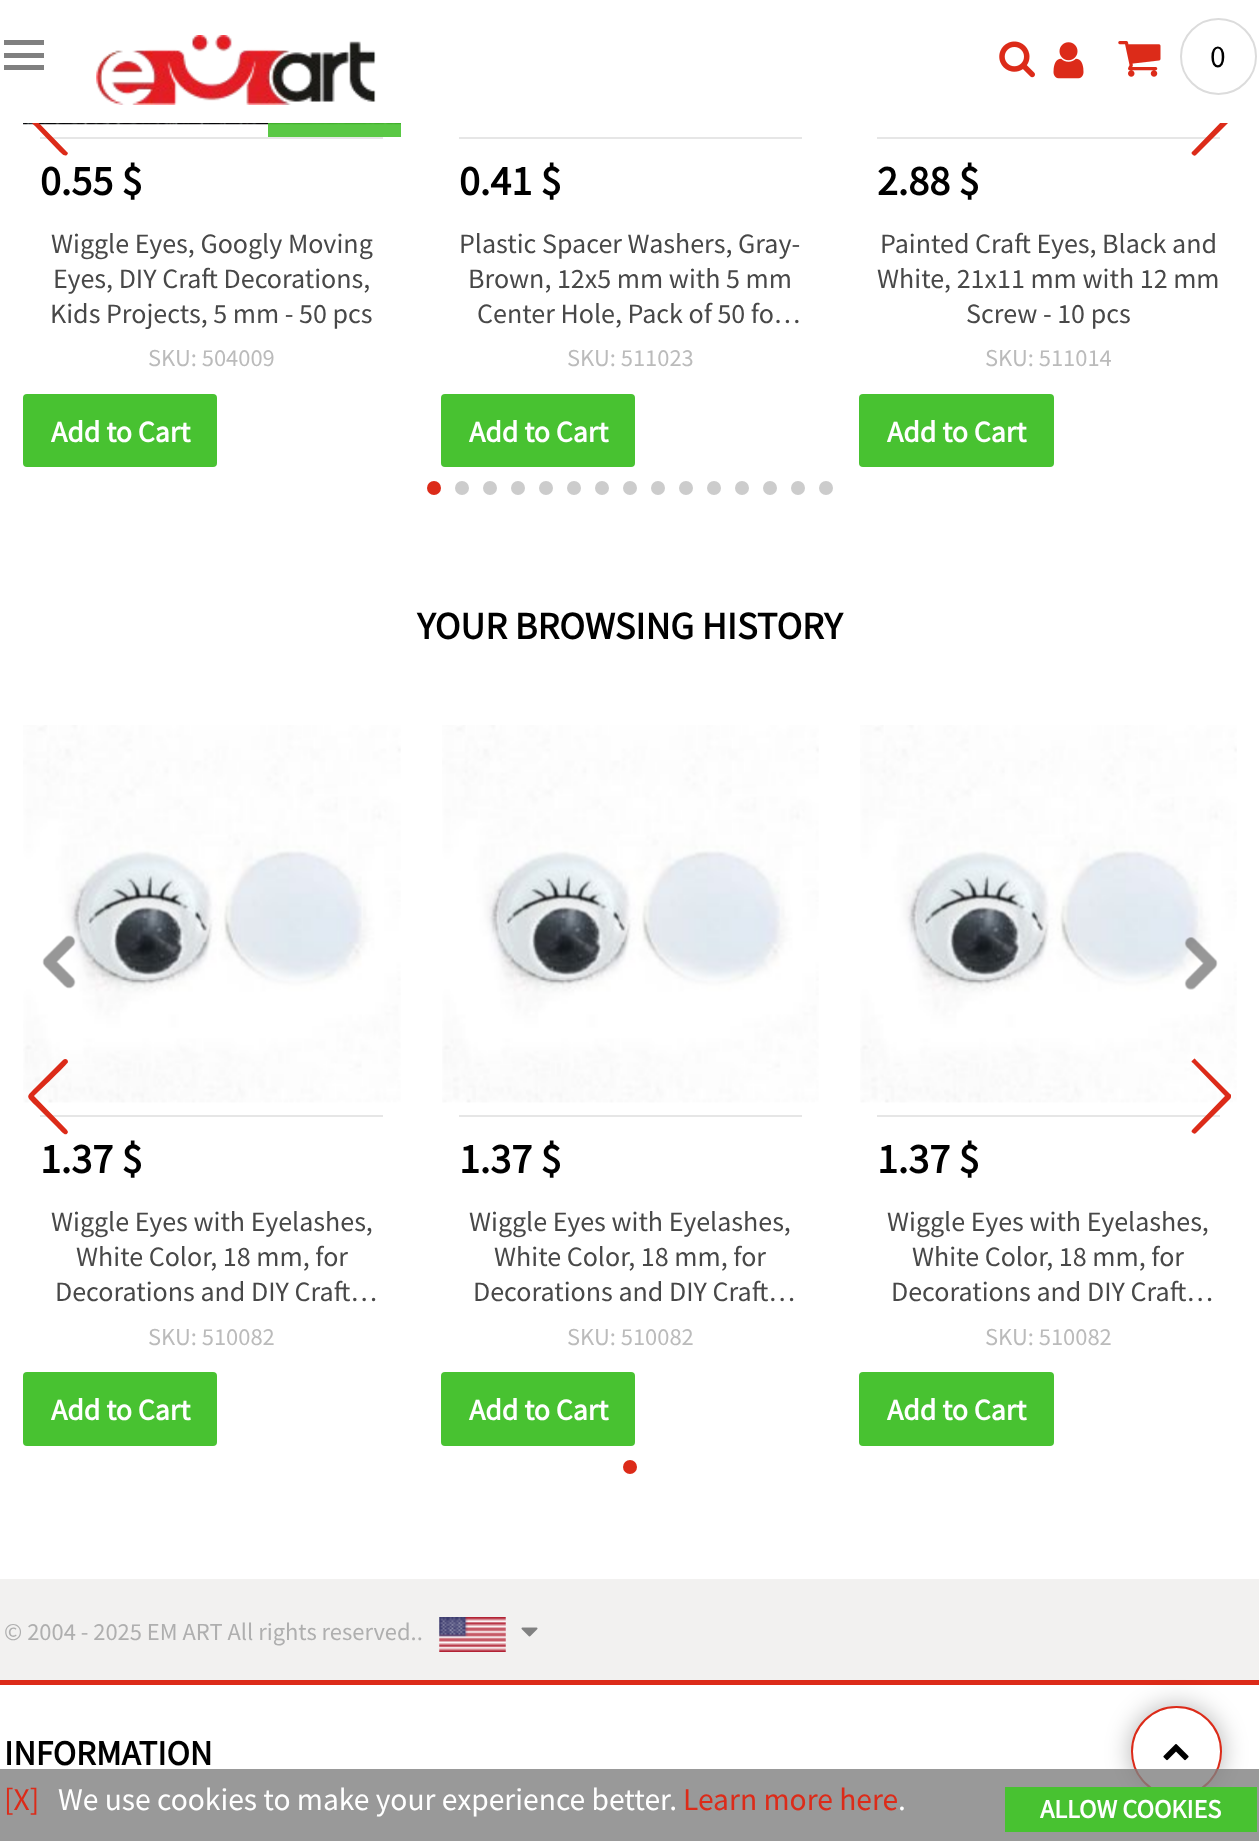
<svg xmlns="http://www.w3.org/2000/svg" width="1259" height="1841">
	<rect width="100%" height="100%" fill="#FFFFFF" />
	<image x="23" y="123" width="378" height="2" href="assets/img5.png" />
	<rect x="40" y="137" width="343" height="2" fill="#E6E6E6" />
	<path d="M63 81C65 80 68 81 68 83C68 85 38 114 34 118L67 152L68 153C66 159 61 153 57 149L35 126C26 117 26 119 35 110Z" fill="#DC2B19" />
	<rect x="877" y="137" width="343" height="2" fill="#E6E6E6" />
	<path d="M1193 155C1191 154 1191 152 1193 151L1225 118L1193 85C1191 84 1191 83 1193 81C1194 80 1195 80 1196 81L1230 115C1231 116 1231 117 1231 118C1231 119 1231 120 1230 121L1196 155C1195 156 1194 156 1193 155Z" fill="#DC2B19" />
	<rect x="28" y="80" width="1203" height="43" fill="#FFFFFF" />
	<rect x="4" y="53" width="40" height="5" fill="#808080" />
	<rect x="4" y="40" width="40" height="5" fill="#808080" />
	<rect x="4" y="65" width="40" height="5" fill="#808080" />
	<image x="96" y="35" width="280" height="70" href="assets/img1.png" />
	<image x="999" y="41" width="36" height="37" href="assets/img2.png" />
	<image x="1053" y="42" width="31" height="37" href="assets/img3.png" />
	<image x="1118" y="41" width="43" height="36" href="assets/img4.png" />
	<circle cx="1218.5" cy="56.5" r="37.5" fill="none" stroke="#DCDCDC" stroke-width="2" />
	<text x="1210" y="67" font-family="Source Sans Pro" font-size="31.5" fill="#000000">0</text>
	<rect x="268" y="123" width="133" height="14" fill="#48C231" fill-opacity="0.9" />
	<text x="40" y="195" font-family="Source Sans Pro" font-size="42" font-weight="700" fill="#000000">0.55 $</text>
	<g font-family="Source Sans Pro" font-size="28" fill="#484848">
		<text x="51" y="253">Wiggle Eyes, Googly Moving</text>
		<text x="53" y="288">Eyes, DIY Craft Decorations,</text>
		<text x="50" y="323">Kids Projects, 5 mm - 50 pcs</text>
	</g>
	<text x="148" y="366" font-family="Source Sans Pro" font-size="24.5" fill="#BBBBBB">SKU: 504009</text>
	<rect x="23" y="394" width="194" height="73" rx="4" fill="#48C231" />
	<text x="51" y="442" font-family="Source Sans Pro" font-size="29.75" font-weight="700" fill="#FFFFFF">Add to Cart</text>
	<rect x="459" y="137" width="343" height="2" fill="#E6E6E6" />
	<text x="459" y="195" font-family="Source Sans Pro" font-size="42" font-weight="700" fill="#000000">0.41 $</text>
	<g font-family="Source Sans Pro" font-size="28" fill="#484848">
		<text x="459" y="253">Plastic Spacer Washers, Gray-</text>
		<text x="468" y="288">Brown, 12x5 mm with 5 mm</text>
		<text x="477" y="323">Center Hole, Pack of 50 fo…</text>
	</g>
	<text x="567" y="366" font-family="Source Sans Pro" font-size="24.5" fill="#BBBBBB">SKU: 511023</text>
	<rect x="441" y="394" width="194" height="73" rx="4" fill="#48C231" />
	<text x="469" y="442" font-family="Source Sans Pro" font-size="29.75" font-weight="700" fill="#FFFFFF">Add to Cart</text>
	<text x="877" y="195" font-family="Source Sans Pro" font-size="42" font-weight="700" fill="#000000">2.88 $</text>
	<g font-family="Source Sans Pro" font-size="28" fill="#484848">
		<text x="880" y="253">Painted Craft Eyes, Black and</text>
		<text x="877" y="288">White, 21x11 mm with 12 mm</text>
		<text x="966" y="323">Screw - 10 pcs</text>
	</g>
	<text x="985" y="366" font-family="Source Sans Pro" font-size="24.5" fill="#BBBBBB">SKU: 511014</text>
	<rect x="859" y="394" width="195" height="73" rx="4" fill="#48C231" />
	<text x="887" y="442" font-family="Source Sans Pro" font-size="29.75" font-weight="700" fill="#FFFFFF">Add to Cart</text>
	<circle cx="434" cy="488" r="7" fill="#DC2B19" />
	<circle cx="462" cy="488" r="7" fill="#CCCCCC" />
	<circle cx="490" cy="488" r="7" fill="#CCCCCC" />
	<circle cx="518" cy="488" r="7" fill="#CCCCCC" />
	<circle cx="546" cy="488" r="7" fill="#CCCCCC" />
	<circle cx="574" cy="488" r="7" fill="#CCCCCC" />
	<circle cx="602" cy="488" r="7" fill="#CCCCCC" />
	<circle cx="630" cy="488" r="7" fill="#CCCCCC" />
	<circle cx="658" cy="488" r="7" fill="#CCCCCC" />
	<circle cx="686" cy="488" r="7" fill="#CCCCCC" />
	<circle cx="714" cy="488" r="7" fill="#CCCCCC" />
	<circle cx="742" cy="488" r="7" fill="#CCCCCC" />
	<circle cx="770" cy="488" r="7" fill="#CCCCCC" />
	<circle cx="798" cy="488" r="7" fill="#CCCCCC" />
	<circle cx="826" cy="488" r="7" fill="#CCCCCC" />
	<text x="417" y="639" font-family="Source Sans Pro" font-size="38.5" font-weight="700" fill="#000000">YOUR BROWSING HISTORY</text>
	<image x="23" y="725" width="378" height="378" href="assets/img6.png" />
	<rect x="40" y="1115" width="343" height="2" fill="#E6E6E6" />
	<path d="M63 1060C65 1058 68 1059 68 1062C68 1064 38 1092 34 1096L67 1130L68 1132C66 1138 61 1131 57 1127L35 1105C26 1096 26 1097 35 1088Z" fill="#DC2B19" />
	<image x="860" y="725" width="377" height="378" href="assets/img8.png" />
	<rect x="877" y="1115" width="343" height="2" fill="#E6E6E6" />
	<path d="M1193 1133C1191 1132 1191 1131 1193 1129L1225 1096L1193 1063C1191 1062 1191 1061 1193 1060C1194 1058 1195 1058 1196 1060L1230 1094C1231 1094 1231 1095 1231 1096C1231 1097 1231 1098 1230 1099L1196 1133C1195 1134 1194 1134 1193 1133Z" fill="#DC2B19" />
	<text x="40" y="1173" font-family="Source Sans Pro" font-size="42" font-weight="700" fill="#000000">1.37 $</text>
	<g font-family="Source Sans Pro" font-size="28" fill="#484848">
		<text x="51" y="1231">Wiggle Eyes with Eyelashes,</text>
		<text x="76" y="1266">White Color, 18 mm, for</text>
		<text x="55" y="1301">Decorations and DIY Craft…</text>
	</g>
	<text x="148" y="1345" font-family="Source Sans Pro" font-size="24.5" fill="#BBBBBB">SKU: 510082</text>
	<rect x="23" y="1372" width="194" height="74" rx="4" fill="#48C231" />
	<text x="51" y="1420" font-family="Source Sans Pro" font-size="29.75" font-weight="700" fill="#FFFFFF">Add to Cart</text>
	<image x="442" y="725" width="377" height="378" href="assets/img7.png" />
	<rect x="459" y="1115" width="343" height="2" fill="#E6E6E6" />
	<text x="459" y="1173" font-family="Source Sans Pro" font-size="42" font-weight="700" fill="#000000">1.37 $</text>
	<g font-family="Source Sans Pro" font-size="28" fill="#484848">
		<text x="469" y="1231">Wiggle Eyes with Eyelashes,</text>
		<text x="494" y="1266">White Color, 18 mm, for</text>
		<text x="473" y="1301">Decorations and DIY Craft…</text>
	</g>
	<text x="567" y="1345" font-family="Source Sans Pro" font-size="24.5" fill="#BBBBBB">SKU: 510082</text>
	<rect x="441" y="1372" width="194" height="74" rx="4" fill="#48C231" />
	<text x="469" y="1420" font-family="Source Sans Pro" font-size="29.75" font-weight="700" fill="#FFFFFF">Add to Cart</text>
	<text x="877" y="1173" font-family="Source Sans Pro" font-size="42" font-weight="700" fill="#000000">1.37 $</text>
	<g font-family="Source Sans Pro" font-size="28" fill="#484848">
		<text x="887" y="1231">Wiggle Eyes with Eyelashes,</text>
		<text x="912" y="1266">White Color, 18 mm, for</text>
		<text x="891" y="1301">Decorations and DIY Craft…</text>
	</g>
	<text x="985" y="1345" font-family="Source Sans Pro" font-size="24.5" fill="#BBBBBB">SKU: 510082</text>
	<rect x="859" y="1372" width="195" height="74" rx="4" fill="#48C231" />
	<text x="887" y="1420" font-family="Source Sans Pro" font-size="29.75" font-weight="700" fill="#FFFFFF">Add to Cart</text>
	<circle cx="630" cy="1467" r="7" fill="#DC2B19" />
	<image x="42" y="935" width="34" height="54" href="assets/img9.png" />
	<image x="1184" y="937" width="34" height="53" href="assets/img10.png" />
	<rect x="0" y="1579" width="1259" height="101" fill="#F2F1F0" />
	<rect x="0" y="1680" width="1259" height="5" fill="#DC2B19" />
	<text x="4" y="1640" font-family="Source Sans Pro" font-size="24.5" fill="#AFAFAF">© 2004 - 2025 EM ART All rights reserved..</text>
	<image x="439" y="1617" width="67" height="35" href="assets/img11.png" />
	<image x="521" y="1627" width="17" height="10" href="assets/img12.png" />
	<text x="4" y="1765" font-family="Source Sans Pro" font-size="35" font-weight="700" fill="#000000">INFORMATION</text>
	<rect x="1131" y="1706" width="91" height="91" rx="45.5" fill="#000000" fill-opacity="0.3" filter="blur(13px)" />
	<circle cx="1176.5" cy="1751.5" r="44.5" fill="#FFFFFF" stroke="#DC2B19" stroke-width="2" />
	<image x="1163" y="1744" width="26" height="17" href="assets/img13.png" />
	<rect x="0" y="1769" width="1259" height="72" fill="#7F7F7F" fill-opacity="0.8" />
	<text x="4" y="1810" font-family="Source Sans Pro" font-size="31.5" fill="#DC2B19">[X]</text>
	<text x="58" y="1810" font-family="Source Sans Pro" font-size="31.5" fill="#FFFFFF">We use cookies to make your experience better.</text>
	<text x="683" y="1810" font-family="Source Sans Pro" font-size="31.5" fill="#DC2B19">Learn more here</text>
	<text x="898" y="1810" font-family="Source Sans Pro" font-size="31.5" fill="#FFFFFF">.</text>
	<rect x="1005" y="1787" width="252" height="45" fill="#48C231" />
	<text x="1040" y="1818" font-family="Source Sans Pro" font-size="26.25" font-weight="700" fill="#FFFFFF">ALLOW COOKIES</text>
</svg>
